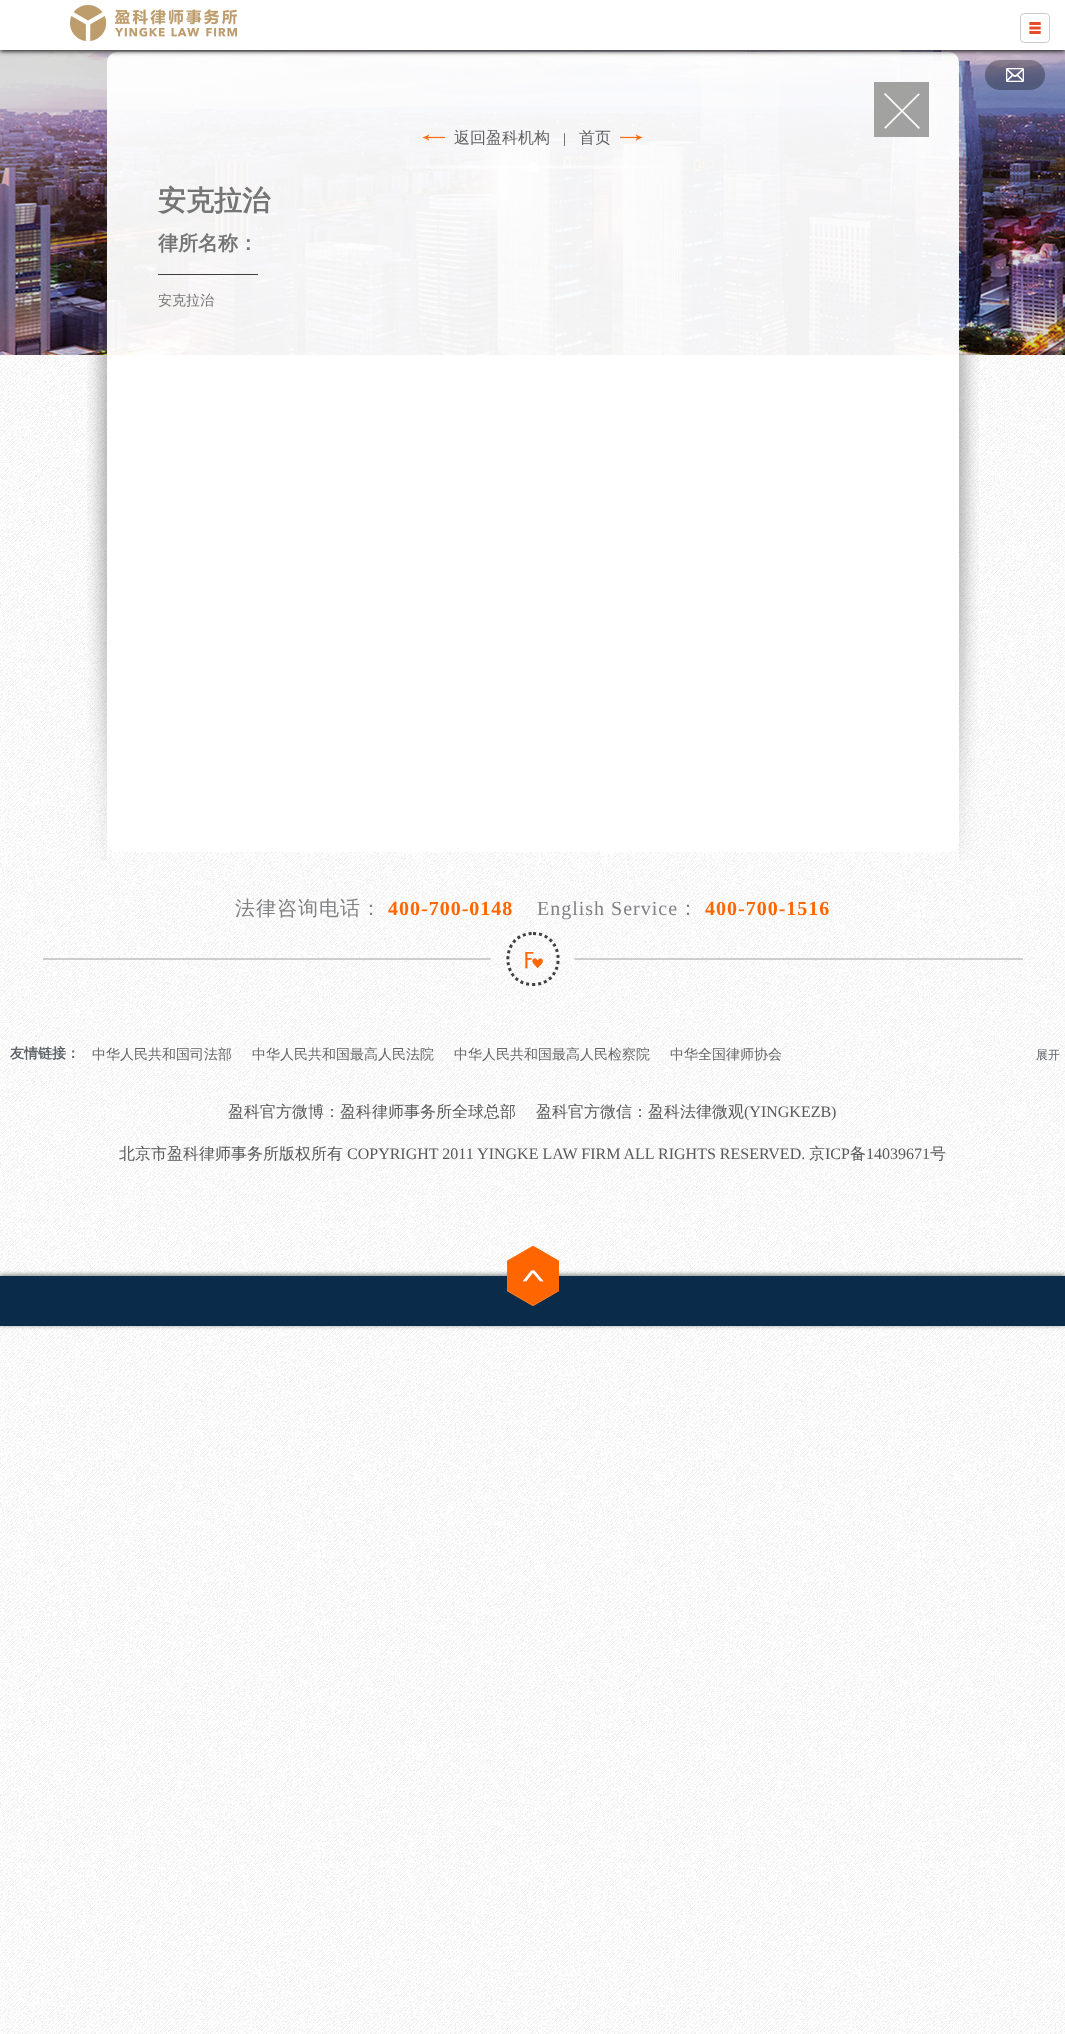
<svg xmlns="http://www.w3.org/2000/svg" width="1065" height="2034">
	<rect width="100%" height="100%" fill="#FFFFFF" />
	<image x="0" y="355" width="1065" height="1679" href="assets/img1.png" />
	<image x="0" y="50" width="1065" height="305" href="assets/img5.png" />
	<image x="364" y="162" width="337" height="10" href="assets/img6.png" />
	<rect x="107" y="52" width="852" height="800" rx="10" fill="#FFFFFF" fill-opacity="0.95" />
	<rect x="0" y="1" width="1065" height="50" fill="#000000" filter="blur(2.5px)" />
	<rect x="0" y="0" width="1065" height="50" fill="#FFFFFF" />
	<image x="70" y="5" width="167" height="36" href="assets/img2.png" />
	<rect x="1020.5" y="13.5" width="29" height="29" rx="3.5" fill="none" stroke="#CCCCCC" />
	<image x="1028" y="22" width="13" height="12" href="assets/img3.png" />
	<image x="985" y="60" width="60" height="30" href="assets/img4.png" />
	<image x="874" y="82" width="55" height="55" href="assets/img7.png" />
	<image x="422" y="134" width="23" height="7" href="assets/img8.png" />
	<text x="454" y="143" font-family="WenQuanYi Zen Hei" font-size="16" font-weight="500" fill="#606163">返回盈科机构</text>
	<text x="563" y="143" font-family="Liberation Serif" font-size="14" fill="#3C3C3C">|</text>
	<text x="579" y="143" font-family="WenQuanYi Zen Hei" font-size="16" font-weight="500" fill="#606163">首页</text>
	<image x="620" y="134" width="23" height="7" href="assets/img9.png" />
	<text x="158" y="210" font-family="WenQuanYi Zen Hei" font-size="28" font-weight="700" fill="#757575">安克拉治</text>
	<rect x="158" y="274" width="100" height="1" fill="#333333" fill-opacity="0.95" />
	<text x="158" y="250" font-family="WenQuanYi Zen Hei" font-size="20" font-weight="700" fill="#757575">律所名称：</text>
	<text x="158" y="305" font-family="WenQuanYi Zen Hei" font-size="14" font-weight="500" fill="#757575">安克拉治</text>
	<image x="87" y="355" width="20" height="505" href="assets/img10.png" />
	<image x="959" y="355" width="20" height="505" href="assets/img11.png" />
	<image x="0" y="860" width="1065" height="416" href="assets/img12.png" />
	<text x="235" y="915" font-family="WenQuanYi Zen Hei" font-size="20" font-weight="500" letter-spacing="1" fill="#808285">法律咨询电话：</text>
	<text x="388" y="915" font-family="Liberation Serif" font-size="20" font-weight="700" letter-spacing="1" fill="#FF6600">400-700-0148</text>
	<text x="537" y="915" font-family="Liberation Serif" font-size="20" letter-spacing="1" fill="#808285">English Service</text>
	<text x="678" y="915" font-family="WenQuanYi Zen Hei" font-size="20" font-weight="500" letter-spacing="1" fill="#808285">：</text>
	<text x="705" y="915" font-family="Liberation Serif" font-size="20" font-weight="700" letter-spacing="1" fill="#FF6600">400-700-1516</text>
	<image x="43" y="958" width="980" height="2" href="assets/img13.png" />
	<path d="M533 933.5C566.5 933.5 566.5 984.5 533 984.5C499.5 984.5 499.5 933.5 533 933.5Z" fill="none" stroke="#414141" stroke-width="3" stroke-dasharray="3 3" />
	<image x="525" y="952" width="18" height="17" href="assets/img14.png" />
	<text x="10" y="1058" font-family="WenQuanYi Zen Hei" font-size="14" font-weight="700" fill="#5D6369">友情链接：</text>
	<g font-family="WenQuanYi Zen Hei" font-size="14" font-weight="500" fill="#666666">
		<text x="92" y="1059">中华人民共和国司法部</text>
		<text x="252" y="1059">中华人民共和国最高人民法院</text>
		<text x="454" y="1059">中华人民共和国最高人民检察院</text>
		<text x="670" y="1059">中华全国律师协会</text>
	</g>
	<text x="1036" y="1059" font-family="WenQuanYi Zen Hei" font-size="12" font-weight="500" fill="#5D6369">展开</text>
	<g font-family="WenQuanYi Zen Hei" font-size="16" font-weight="500" fill="#58595B">
		<text x="228" y="1117">盈科官方微博：盈科律师事务所全球总部</text>
		<text x="536" y="1117">盈科官方微信：盈科法律微观</text>
	</g>
	<text x="744" y="1117" font-family="Liberation Serif" font-size="16" fill="#58595B">(YINGKEZB)</text>
	<text x="119" y="1159" font-family="WenQuanYi Zen Hei" font-size="16" font-weight="500" fill="#58595B">北京市盈科律师事务所版权所有</text>
	<text x="347" y="1159" font-family="Liberation Serif" font-size="16" fill="#58595B">COPYRIGHT 2011 YINGKE LAW FIRM ALL RIGHTS RESERVED.</text>
	<text x="809" y="1159" font-family="WenQuanYi Zen Hei" font-size="16" font-weight="500" fill="#58595B">京</text>
	<text x="825" y="1159" font-family="Liberation Serif" font-size="16" fill="#58595B">ICP</text>
	<text x="850" y="1159" font-family="WenQuanYi Zen Hei" font-size="16" font-weight="500" fill="#58595B">备</text>
	<text x="866" y="1159" font-family="Liberation Serif" font-size="16" fill="#58595B">14039671</text>
	<text x="930" y="1159" font-family="WenQuanYi Zen Hei" font-size="16" font-weight="500" fill="#58595B">号</text>
	<rect x="0" y="1275" width="1065" height="50" fill="#777777" filter="blur(2.5px)" />
	<rect x="0" y="1276" width="1065" height="50" fill="#0A2B49" />
	<image x="507" y="1246" width="52" height="60" href="assets/img15.png" />
</svg>
